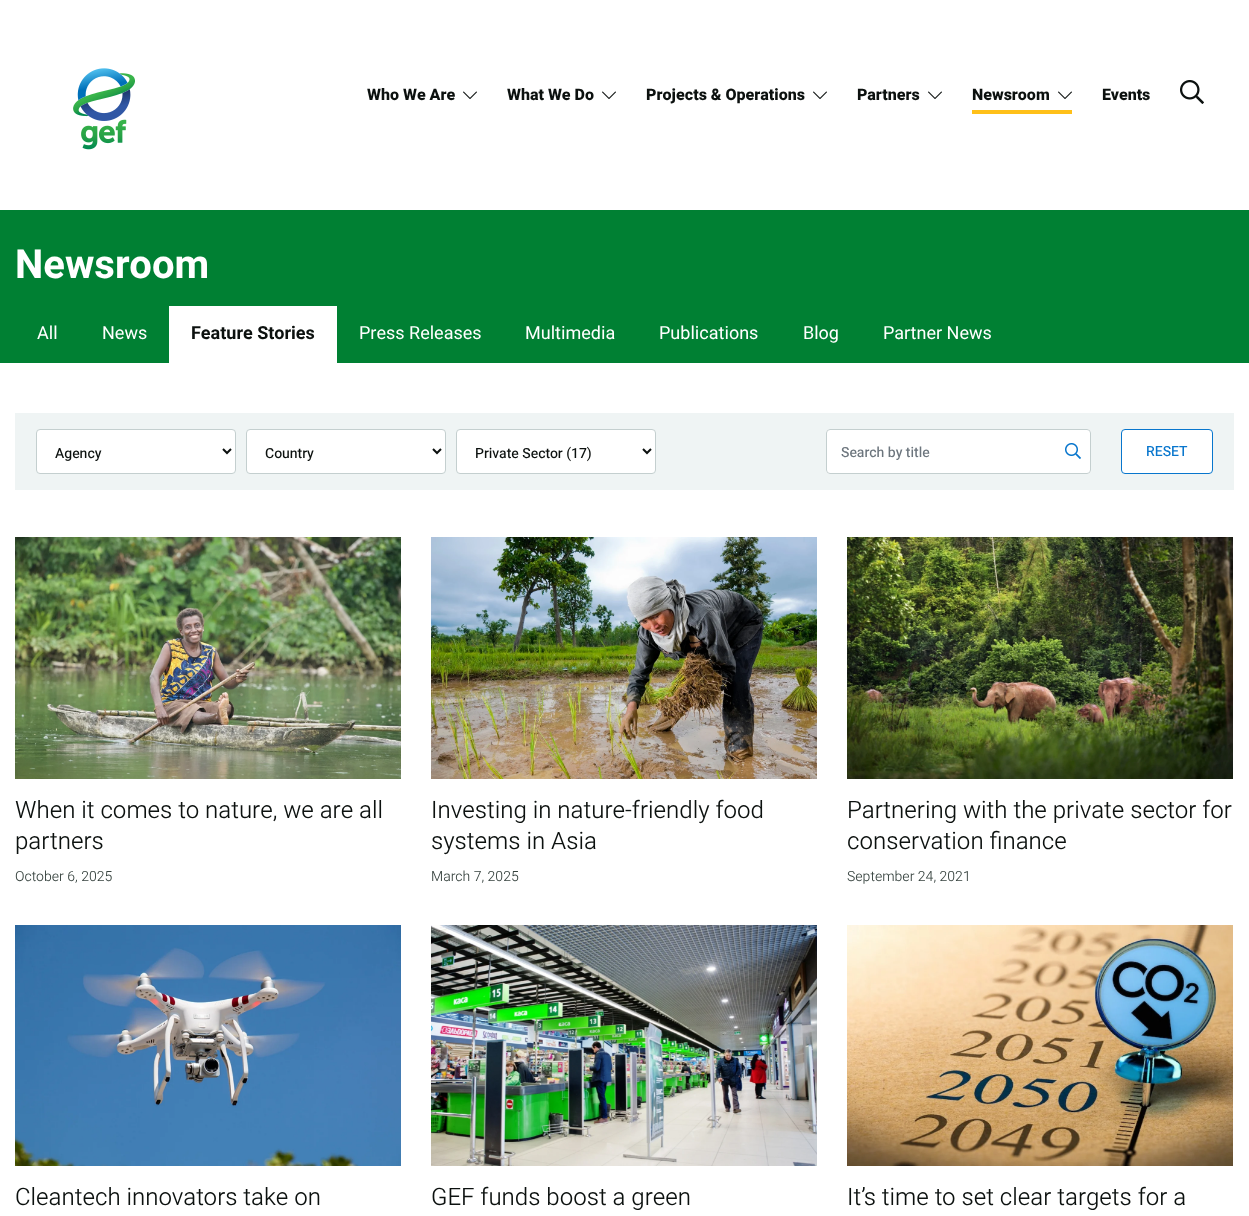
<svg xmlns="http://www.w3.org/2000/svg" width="1249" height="1216">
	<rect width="100%" height="100%" fill="#FFFFFF" />
	<image x="73" y="68" width="62" height="82" href="assets/img1.png" />
	<image x="463" y="91" width="14" height="8" href="assets/img2.png" />
	<text x="367" y="100" font-family="Heebo" font-size="16" font-weight="800" fill="#0C110F">Who We Are</text>
	<image x="602" y="91" width="14" height="8" href="assets/img2.png" />
	<text x="507" y="100" font-family="Heebo" font-size="16" font-weight="800" fill="#0C110F">What We Do</text>
	<image x="813" y="91" width="14" height="8" href="assets/img2.png" />
	<text x="646" y="100" font-family="Heebo" font-size="16" font-weight="800" fill="#0C110F">Projects &amp; Operations</text>
	<image x="928" y="91" width="14" height="8" href="assets/img2.png" />
	<text x="857" y="100" font-family="Heebo" font-size="16" font-weight="800" fill="#0C110F">Partners</text>
	<image x="1058" y="91" width="14" height="8" href="assets/img2.png" />
	<rect x="972" y="110" width="100" height="4" fill="#FFC019" />
	<g font-family="Heebo" font-size="16" font-weight="800" fill="#0C110F">
		<text x="972" y="100">Newsroom</text>
		<text x="1102" y="100">Events</text>
	</g>
	<image x="1180" y="80" width="24" height="24" href="assets/img3.png" />
	<rect x="0" y="210" width="1249" height="153" fill="#008033" />
	<text x="15" y="278" font-family="Heebo" font-size="40" font-weight="700" fill="#FFFFFF">Newsroom</text>
	<g font-family="Heebo" font-size="18" fill="#FFFFFF">
		<text x="37" y="339">All</text>
		<text x="102" y="339">News</text>
	</g>
	<rect x="169" y="306" width="168" height="57" fill="#FFFFFF" />
	<text x="191" y="339" font-family="Heebo" font-size="18" font-weight="700" fill="#0C110F">Feature Stories</text>
	<g font-family="Heebo" font-size="18" fill="#FFFFFF">
		<text x="359" y="339">Press Releases</text>
		<text x="525" y="339">Multimedia</text>
		<text x="659" y="339">Publications</text>
		<text x="803" y="339">Blog</text>
		<text x="883" y="339">Partner News</text>
	</g>
	<rect x="15" y="413" width="1219" height="77" fill="#EFF4F4" />
	<rect x="36.5" y="429.5" width="199" height="44" rx="3.5" fill="#FFFFFF" stroke="#C4CFCF" />
	<path d="M223 449L227 453L231 449" fill="none" stroke="#0C110F" stroke-width="2" />
	<text x="55" y="458" font-family="Heebo" font-size="14" font-weight="500" fill="#0C110F">Agency</text>
	<rect x="246.5" y="429.5" width="199" height="44" rx="3.5" fill="#FFFFFF" stroke="#C4CFCF" />
	<path d="M433 449L437 453L441 449" fill="none" stroke="#0C110F" stroke-width="2" />
	<text x="265" y="458" font-family="Heebo" font-size="14" font-weight="500" fill="#0C110F">Country</text>
	<rect x="456.5" y="429.5" width="199" height="44" rx="3.5" fill="#FFFFFF" stroke="#C4CFCF" />
	<path d="M643 449L647 453L651 449" fill="none" stroke="#0C110F" stroke-width="2" />
	<text x="475" y="458" font-family="Heebo" font-size="14" font-weight="500" fill="#0C110F">Private Sector (17)</text>
	<rect x="826" y="429" width="265" height="45" rx="4" fill="#FFFFFF" />
	<image x="1065" y="443" width="16" height="16" href="assets/img4.png" />
	<rect x="826.5" y="429.5" width="264" height="44" rx="3.5" fill="none" stroke="#C4CFCF" />
	<text x="841" y="457" font-family="Heebo" font-size="14" font-weight="500" fill="#6C757D">Search by title</text>
	<rect x="1121.5" y="429.5" width="91" height="44" rx="3.5" fill="#FFFFFF" stroke="#0876CD" />
	<text x="1146" y="456" font-family="Heebo" font-size="14" font-weight="500" fill="#0876CD">RESET</text>
	<image x="15" y="537" width="386" height="242" href="assets/img5.png" />
	<g font-family="Heebo" font-size="24" font-weight="300" fill="#0C110F">
		<text x="15" y="818">When it comes to nature, we are all</text>
		<text x="15" y="849">partners</text>
	</g>
	<text x="15" y="881" font-family="Heebo" font-size="14" font-weight="300" fill="#36423E">October 6, 2025</text>
	<image x="431" y="537" width="386" height="242" href="assets/img6.png" />
	<g font-family="Heebo" font-size="24" font-weight="300" fill="#0C110F">
		<text x="431" y="818">Investing in nature-friendly food</text>
		<text x="431" y="849">systems in Asia</text>
	</g>
	<text x="431" y="881" font-family="Heebo" font-size="14" font-weight="300" fill="#36423E">March 7, 2025</text>
	<image x="847" y="537" width="386" height="242" href="assets/img7.png" />
	<g font-family="Heebo" font-size="24" font-weight="300" fill="#0C110F">
		<text x="847" y="818">Partnering with the private sector for</text>
		<text x="847" y="849">conservation finance</text>
	</g>
	<text x="847" y="881" font-family="Heebo" font-size="14" font-weight="300" fill="#36423E">September 24, 2021</text>
	<image x="15" y="925" width="386" height="241" href="assets/img8.png" />
	<text x="15" y="1205" font-family="Heebo" font-size="24" font-weight="300" fill="#0C110F">Cleantech innovators take on</text>
	<image x="431" y="925" width="386" height="241" href="assets/img9.png" />
	<text x="431" y="1205" font-family="Heebo" font-size="24" font-weight="300" fill="#0C110F">GEF funds boost a green</text>
	<image x="847" y="925" width="386" height="241" href="assets/img10.png" />
	<text x="847" y="1205" font-family="Heebo" font-size="24" font-weight="300" fill="#0C110F">It’s time to set clear targets for a</text>
</svg>
